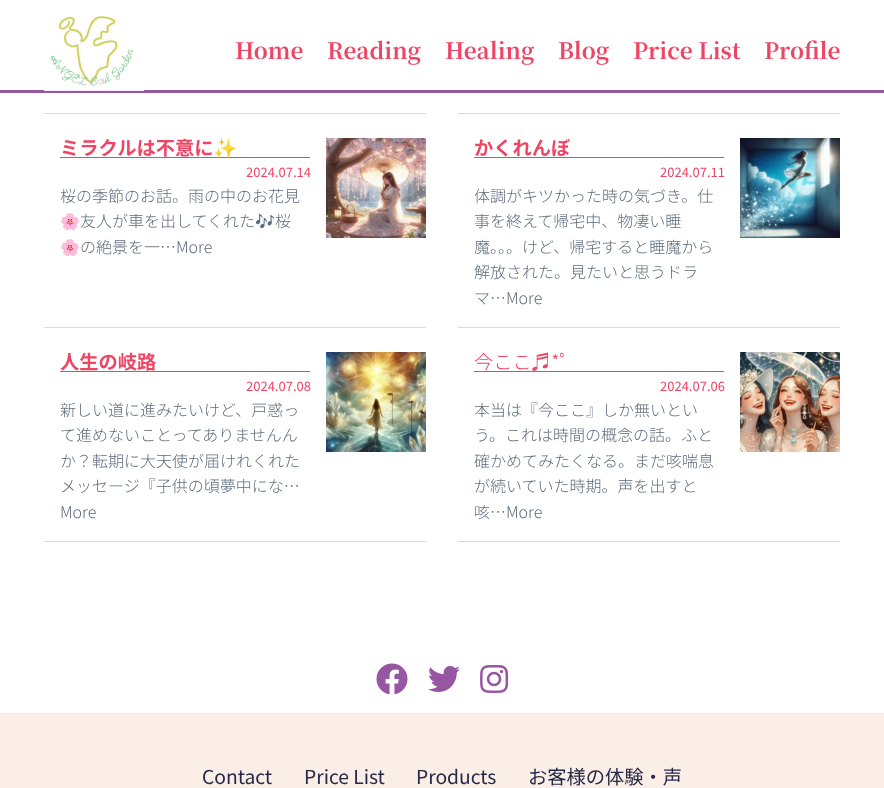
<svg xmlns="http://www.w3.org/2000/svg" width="884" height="788">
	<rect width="100%" height="100%" fill="#FFFFFF" />
	<rect x="0" y="90" width="884" height="3" fill="#9656A1" />
	<image x="44" y="16" width="101" height="75" href="assets/img1.png" />
	<g font-family="Noto Serif JP" font-size="22.5" font-weight="700" fill="#EF4565">
		<text x="235" y="59">Home</text>
		<text x="327" y="59">Reading</text>
		<text x="445" y="59">Healing</text>
		<text x="558" y="59">Blog</text>
		<text x="633" y="59">Price List</text>
		<text x="764" y="59">Profile</text>
	</g>
	<rect x="44" y="113" width="382" height="1" fill="#DBDBDB" />
	<rect x="458" y="113" width="382" height="1" fill="#DBDBDB" />
	<rect x="44" y="327" width="382" height="1" fill="#DBDBDB" />
	<rect x="60" y="157" width="250" height="1" fill="#EF4565" />
	<text x="60" y="155" font-family="Noto Sans JP" font-size="19.25" font-weight="700" fill="#EF4565">ミラクルは不意に</text>
	<text x="213" y="155" font-family="Noto Color Emoji" font-size="19.25" font-weight="700" fill="#EF4565">✨</text>
	<text x="246" y="177" font-family="Noto Sans JP" font-size="13" fill="#EF4565">2024.07.14</text>
	<text x="60" y="202" font-family="Noto Sans JP" font-size="16" font-weight="300" fill="#5F6C7B">桜の季節のお話。雨の中のお花見</text>
	<text x="60" y="227" font-family="Noto Color Emoji" font-size="16" fill="#5F6C7B">🌸</text>
	<text x="80" y="227" font-family="Noto Sans JP" font-size="16" font-weight="300" fill="#5F6C7B">友人が車を出してくれた</text>
	<text x="255" y="227" font-family="Noto Color Emoji" font-size="16" fill="#5F6C7B">🎶</text>
	<text x="275" y="227" font-family="Noto Sans JP" font-size="16" font-weight="300" fill="#5F6C7B">桜</text>
	<text x="60" y="253" font-family="Noto Color Emoji" font-size="16" fill="#5F6C7B">🌸</text>
	<text x="80" y="253" font-family="Noto Sans JP" font-size="16" font-weight="300" fill="#5F6C7B">の絶景を一…More</text>
	<image x="326" y="138" width="100" height="100" href="assets/img2.png" />
	<rect x="458" y="327" width="382" height="1" fill="#DBDBDB" />
	<rect x="474" y="157" width="250" height="1" fill="#EF4565" />
	<text x="474" y="155" font-family="Noto Sans JP" font-size="19.25" font-weight="700" fill="#EF4565">かくれんぼ</text>
	<text x="660" y="177" font-family="Noto Sans JP" font-size="13" fill="#EF4565">2024.07.11</text>
	<g font-family="Noto Sans JP" font-size="16" font-weight="300" fill="#5F6C7B">
		<text x="474" y="202">体調がキツかった時の気づき。仕</text>
		<text x="474" y="227">事を終えて帰宅中、物凄い睡</text>
		<text x="474" y="253">魔。。。けど、帰宅すると睡魔から</text>
		<text x="474" y="278">解放された。見たいと思うドラ</text>
		<text x="474" y="304">マ…More</text>
	</g>
	<image x="740" y="138" width="100" height="100" href="assets/img3.png" />
	<rect x="44" y="541" width="382" height="1" fill="#DBDBDB" />
	<rect x="60" y="371" width="250" height="1" fill="#EF4565" />
	<text x="60" y="369" font-family="Noto Sans JP" font-size="19.25" font-weight="700" fill="#EF4565">人生の岐路</text>
	<text x="246" y="391" font-family="Noto Sans JP" font-size="13" fill="#EF4565">2024.07.08</text>
	<g font-family="Noto Sans JP" font-size="16" font-weight="300" fill="#5F6C7B">
		<text x="60" y="416">新しい道に進みたいけど、戸惑っ</text>
		<text x="60" y="441">て進めないことってありませんん</text>
		<text x="60" y="467">か？転期に大天使が届けれくれた</text>
		<text x="60" y="492">メッセージ『子供の頃夢中にな…</text>
		<text x="60" y="518">More</text>
	</g>
	<image x="326" y="352" width="100" height="100" href="assets/img4.png" />
	<rect x="458" y="541" width="382" height="1" fill="#DBDBDB" />
	<rect x="474" y="371" width="250" height="1" fill="#EF4565" />
	<text x="474" y="369" font-family="'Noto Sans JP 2'" font-size="19.25" font-weight="300" fill="#EF4565">今ここ♬*ﾟ</text>
	<text x="660" y="391" font-family="Noto Sans JP" font-size="13" fill="#EF4565">2024.07.06</text>
	<g font-family="Noto Sans JP" font-size="16" font-weight="300" fill="#5F6C7B">
		<text x="474" y="416">本当は『今ここ』しか無いとい</text>
		<text x="474" y="441">う。これは時間の概念の話。ふと</text>
		<text x="474" y="467">確かめてみたくなる。まだ咳喘息</text>
		<text x="474" y="492">が続いていた時期。声を出すと</text>
		<text x="474" y="518">咳…More</text>
	</g>
	<image x="740" y="352" width="100" height="100" href="assets/img5.png" />
	<image x="376" y="663" width="32" height="32" href="assets/img6.png" />
	<image x="428" y="666" width="32" height="26" href="assets/img7.png" />
	<image x="480" y="665" width="29" height="28" href="assets/img8.png" />
	<rect x="0" y="713" width="884" height="75" fill="#FAEEE7" />
	<g font-family="Noto Sans JP" font-size="19.25" fill="#232946">
		<text x="202" y="784">Contact</text>
		<text x="304" y="784">Price List</text>
		<text x="416" y="784">Products</text>
		<text x="528" y="784">お客様の体験・声</text>
	</g>
</svg>
